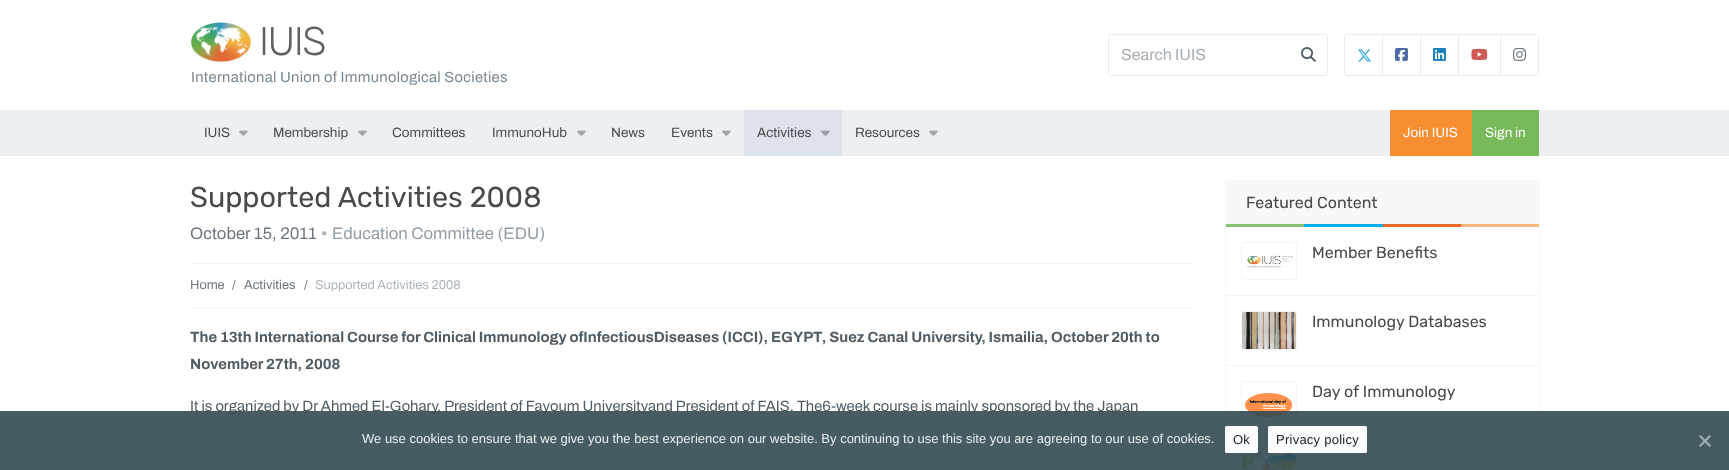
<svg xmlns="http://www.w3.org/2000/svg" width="1729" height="470">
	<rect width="100%" height="100%" fill="#FFFFFF" />
	<image x="191" y="22" width="60" height="40" href="assets/img1.png" />
	<text x="259" y="55" font-family="Rubik" font-size="40" font-weight="300" letter-spacing="-1.5" fill="#606064">IUIS</text>
	<text x="191" y="82" font-family="Archivo" font-size="14.75" font-weight="600" letter-spacing="0.3" fill="#778895">International Union of Immunological Societies</text>
	<rect x="1108.5" y="34.5" width="219" height="41" rx="2" fill="none" stroke="#E9ECEF" />
	<text x="1121" y="60" font-family="Archivo" font-size="16" font-weight="600" fill="#A7AEB3">Search IUIS</text>
	<image x="1301" y="47" width="15" height="15" href="assets/img2.png" />
	<path d="M1346.5 34.5H1382.5V75.5H1346.5C1345.5 75.5 1344.5 74.5 1344.5 73.5V36.5C1344.5 35.5 1345.5 34.5 1346.5 34.5Z" fill="none" stroke="#E9ECEF" />
	<image x="1357" y="49" width="15" height="13" href="assets/img3.png" />
	<rect x="1382.5" y="34.5" width="38" height="41" fill="none" stroke="#E9ECEF" />
	<image x="1395" y="48" width="13" height="13" href="assets/img4.png" />
	<rect x="1420.5" y="34.5" width="38" height="41" fill="none" stroke="#E9ECEF" />
	<image x="1433" y="48" width="13" height="13" href="assets/img5.png" />
	<rect x="1458.5" y="34.5" width="42" height="41" fill="none" stroke="#E9ECEF" />
	<image x="1471" y="48" width="17" height="12" href="assets/img6.png" />
	<path d="M1500.5 34.5H1536.5C1537.5 34.5 1538.5 35.5 1538.5 36.5V73.5C1538.5 74.5 1537.5 75.5 1536.5 75.5H1500.5Z" fill="none" stroke="#E9ECEF" />
	<image x="1513" y="48" width="13" height="13" href="assets/img7.png" />
	<rect x="0" y="110" width="1729" height="46" fill="#EDF0F3" />
	<text x="204" y="137" font-family="Archivo" font-size="13.5" font-weight="600" fill="#494C50">IUIS</text>
	<image x="239" y="130" width="9" height="6" href="assets/img8.png" />
	<text x="273" y="137" font-family="Archivo" font-size="13.5" font-weight="600" fill="#494C50">Membership</text>
	<image x="358" y="130" width="9" height="6" href="assets/img8.png" />
	<g font-family="Archivo" font-size="13.5" font-weight="600" fill="#494C50">
		<text x="392" y="137">Committees</text>
		<text x="492" y="137">ImmunoHub</text>
	</g>
	<image x="577" y="130" width="9" height="6" href="assets/img8.png" />
	<g font-family="Archivo" font-size="13.5" font-weight="600" fill="#494C50">
		<text x="611" y="137">News</text>
		<text x="671" y="137">Events</text>
	</g>
	<image x="722" y="130" width="9" height="6" href="assets/img8.png" />
	<rect x="744" y="110" width="98" height="46" fill="#DEE3E9" />
	<text x="757" y="137" font-family="Archivo" font-size="13.5" font-weight="600" fill="#494C50">Activities</text>
	<image x="821" y="130" width="9" height="6" href="assets/img9.png" />
	<text x="855" y="137" font-family="Archivo" font-size="13.5" font-weight="600" fill="#494C50">Resources</text>
	<image x="929" y="130" width="9" height="6" href="assets/img8.png" />
	<rect x="1390" y="110" width="82" height="46" fill="#F78E32" />
	<text x="1403" y="137" font-family="Archivo" font-size="13.5" font-weight="600" fill="#FFFFFF">Join IUIS</text>
	<rect x="1472" y="110" width="67" height="46" fill="#78B95B" />
	<text x="1485" y="137" font-family="Archivo" font-size="13.5" font-weight="600" fill="#FFFFFF">Sign in</text>
	<text x="190" y="207" font-family="'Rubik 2'" font-size="28.75" font-weight="300" fill="#4A4A4A">Supported Activities 2008</text>
	<text x="190" y="239" font-family="Archivo" font-size="16.75" font-weight="600" fill="#6C757D">October 15, 2011</text>
	<text x="321" y="239" font-family="Archivo" font-size="16.75" font-weight="600" fill="#A7AEB3">•</text>
	<text x="332" y="239" font-family="Archivo" font-size="16.75" font-weight="600" fill="#919CA6">Education Committee (EDU)</text>
	<rect x="190" y="263" width="1005" height="1" fill="#F3F5F7" />
	<rect x="190" y="307" width="1005" height="1" fill="#F3F5F7" />
	<g font-family="Archivo" font-size="12.75" font-weight="600" fill="#6C757D">
		<text x="190" y="289">Home</text>
		<text x="232" y="289">/</text>
		<text x="244" y="289">Activities</text>
		<text x="304" y="289">/</text>
	</g>
	<text x="315" y="289" font-family="Archivo" font-size="12.75" font-weight="600" fill="#ADB5BD">Supported Activities 2008</text>
	<g font-family="'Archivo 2'" font-size="14.8" font-weight="600" fill="#4F5C66">
		<text x="190" y="342">The 13th International Course for Clinical Immunology ofInfectiousDiseases (ICCI), EGYPT, Suez Canal University, Ismailia, October 20th to</text>
		<text x="190" y="369">November 27th, 2008</text>
	</g>
	<text x="190" y="411" font-family="Archivo" font-size="14.8" font-weight="600" fill="#4F5C66">It is organized by Dr Ahmed El-Gohary, President of Fayoum Universityand President of FAIS. The6-week course is mainly sponsored by the Japan</text>
	<rect x="1225.5" y="180.5" width="314" height="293" rx="2" fill="none" stroke="#F7F7F7" />
	<path d="M1227.5 181H1537.5C1538.5 181 1539 181.5 1539 182.5V224H1226V182.5C1226 181.5 1226.5 181 1227.5 181Z" fill="#F6F8F9" />
	<text x="1246" y="208" font-family="'Rubik 2'" font-size="16" font-weight="300" fill="#4A4A4A">Featured Content</text>
	<rect x="1226" y="224" width="78" height="3" fill="#87C16D" />
	<rect x="1304" y="224" width="79" height="3" fill="#03AFF8" />
	<rect x="1383" y="224" width="78" height="3" fill="#ED6825" />
	<rect x="1461" y="224" width="78" height="3" fill="#FAB77C" />
	<rect x="1226" y="295" width="313" height="1" fill="#F3F5F7" />
	<rect x="1241.5" y="242.5" width="55" height="37" rx="2" fill="none" stroke="#F5F5F5" />
	<image x="1247" y="255" width="47" height="13" href="assets/img10.png" />
	<text x="1312" y="258" font-family="'Rubik 2'" font-size="16" font-weight="300" fill="#4A4A4A">Member Benefits</text>
	<rect x="1226" y="365" width="313" height="1" fill="#F3F5F7" />
	<rect x="1241.5" y="311.5" width="55" height="38" rx="2" fill="none" stroke="#F5F5F5" />
	<image x="1242" y="312" width="54" height="37" href="assets/img11.png" />
	<text x="1312" y="327" font-family="'Rubik 2'" font-size="16" font-weight="300" fill="#4A4A4A">Immunology Databases</text>
	<rect x="1258" y="435" width="281" height="1" fill="#F3F5F7" />
	<rect x="1241.5" y="381.5" width="55" height="38" rx="2" fill="none" stroke="#F5F5F5" />
	<image x="1244" y="393" width="48" height="25" href="assets/img12.png" />
	<text x="1312" y="397" font-family="'Rubik 2'" font-size="16" font-weight="300" fill="#4A4A4A">Day of Immunology</text>
	<rect x="1241.5" y="451.5" width="55" height="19" fill="none" stroke="#F5F5F5" />
	<image x="1242" y="452" width="54" height="18" href="assets/img13.png" />
	<rect x="0" y="411" width="1729" height="59" fill="#334951" fill-opacity="0.9" />
	<text x="362" y="443" font-family="Liberation Sans" font-size="13" fill="#E8EFEF">We use cookies to ensure that we give you the best experience on our website. By continuing to use this site you are agreeing to our use of cookies.</text>
	<rect x="1225" y="426" width="33" height="27" rx="1.5" fill="#FAFCFE" />
	<text x="1233" y="444" font-family="Liberation Sans" font-size="13" letter-spacing="0.25" fill="#212529">Ok</text>
	<rect x="1268" y="426" width="99" height="27" rx="1.5" fill="#FAFCFE" />
	<text x="1276" y="444" font-family="Liberation Sans" font-size="13" letter-spacing="0.25" fill="#212529">Privacy policy</text>
	<path d="M1709.5 435L1711 436.5L1700.5 447L1699 445.5Z" fill="#A3ADB1" />
	<path d="M1699 436.5L1700.5 435L1711 445.5L1709.5 447Z" fill="#A3ADB1" />
</svg>
